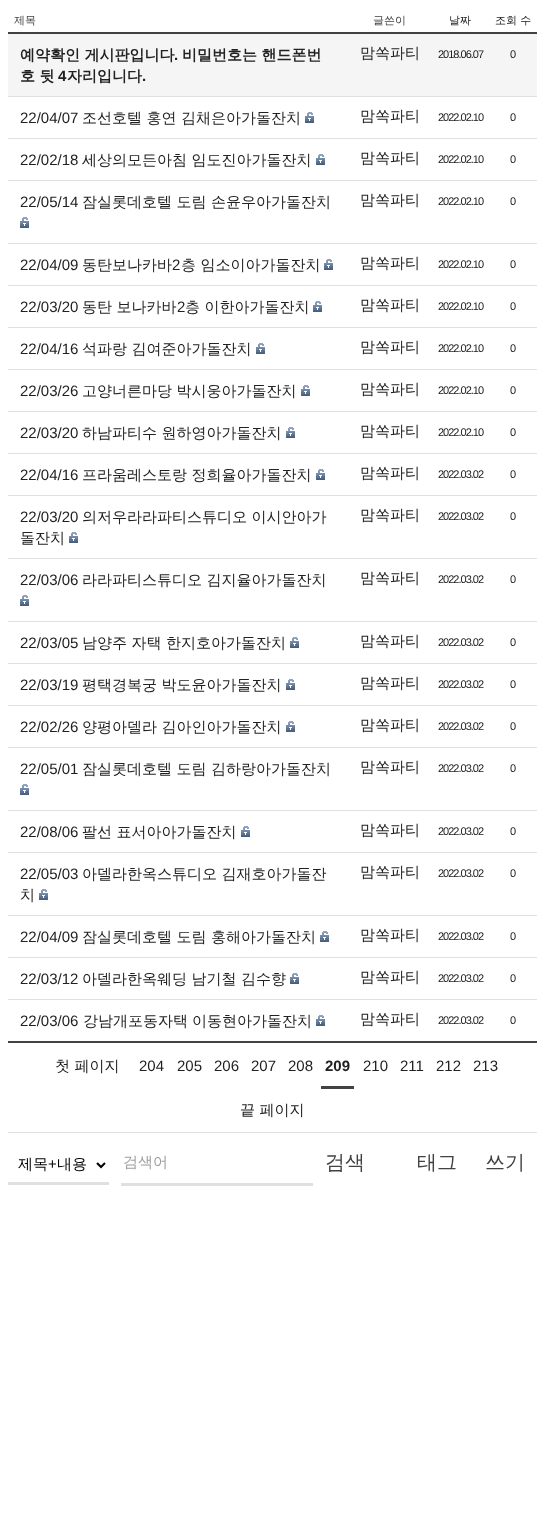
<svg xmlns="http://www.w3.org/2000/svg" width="545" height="1531">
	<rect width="100%" height="100%" fill="#FFFFFF" />
	<rect x="8" y="1041" width="529" height="2" fill="#424242" />
	<rect x="8" y="32" width="529" height="2" fill="#424242" />
	<g font-family="WenQuanYi Zen Hei" font-size="11" font-weight="500" fill="#424242">
		<text x="14" y="24">제목</text>
		<text x="373" y="24">글쓴이</text>
	</g>
	<g font-family="WenQuanYi Zen Hei" font-size="11" font-weight="500" fill="#212121">
		<text x="449" y="24">날짜</text>
		<text x="495" y="24">조회 수</text>
	</g>
	<rect x="8" y="34" width="529" height="62" fill="#F5F5F5" />
	<rect x="8" y="96" width="529" height="1" fill="#E0E0E0" />
	<text x="20" y="60" font-family="WenQuanYi Zen Hei" font-size="15" font-weight="700" fill="#212121">예약확인 게시판입니다</text>
	<text x="174" y="60" font-family="Liberation Sans" font-size="15" font-weight="700" fill="#212121">.</text>
	<g font-family="WenQuanYi Zen Hei" font-size="15" font-weight="700" fill="#212121">
		<text x="182" y="60">비밀번호는 핸드폰번</text>
		<text x="20" y="81">호 뒷</text>
	</g>
	<text x="58" y="81" font-family="Liberation Sans" font-size="15" font-weight="700" fill="#212121">4</text>
	<text x="67" y="81" font-family="WenQuanYi Zen Hei" font-size="15" font-weight="700" fill="#212121">자리입니다</text>
	<text x="142" y="81" font-family="Liberation Sans" font-size="15" font-weight="700" fill="#212121">.</text>
	<text x="360" y="58" font-family="WenQuanYi Zen Hei" font-size="15" font-weight="500" fill="#212121">맘쏙파티</text>
	<g font-family="Liberation Sans" font-size="11" letter-spacing="-1" fill="#212121">
		<text x="438" y="58">2018.06.07</text>
		<text x="510" y="58">0</text>
	</g>
	<rect x="8" y="138" width="529" height="1" fill="#E0E0E0" />
	<text x="20" y="123" font-family="Liberation Sans" font-size="15" fill="#212121">22/04/07</text>
	<text x="82" y="123" font-family="WenQuanYi Zen Hei" font-size="15" font-weight="500" fill="#212121">조선호텔 홍연 김채은아가돌잔치</text>
	<image x="305" y="112" width="9" height="11" href="assets/img1.png" />
	<text x="360" y="121" font-family="WenQuanYi Zen Hei" font-size="15" font-weight="500" fill="#212121">맘쏙파티</text>
	<g font-family="Liberation Sans" font-size="11" letter-spacing="-1" fill="#212121">
		<text x="438" y="121">2022.02.10</text>
		<text x="510" y="121">0</text>
	</g>
	<rect x="8" y="180" width="529" height="1" fill="#E0E0E0" />
	<text x="20" y="165" font-family="Liberation Sans" font-size="15" fill="#212121">22/02/18</text>
	<text x="82" y="165" font-family="WenQuanYi Zen Hei" font-size="15" font-weight="500" fill="#212121">세상의모든아침 임도진아가돌잔치</text>
	<image x="316" y="154" width="9" height="11" href="assets/img1.png" />
	<text x="360" y="163" font-family="WenQuanYi Zen Hei" font-size="15" font-weight="500" fill="#212121">맘쏙파티</text>
	<g font-family="Liberation Sans" font-size="11" letter-spacing="-1" fill="#212121">
		<text x="438" y="163">2022.02.10</text>
		<text x="510" y="163">0</text>
	</g>
	<rect x="8" y="243" width="529" height="1" fill="#E0E0E0" />
	<text x="20" y="207" font-family="Liberation Sans" font-size="15" fill="#212121">22/05/14</text>
	<text x="82" y="207" font-family="WenQuanYi Zen Hei" font-size="15" font-weight="500" fill="#212121">잠실롯데호텔 도림 손윤우아가돌잔치</text>
	<image x="20" y="217" width="9" height="11" href="assets/img1.png" />
	<text x="360" y="205" font-family="WenQuanYi Zen Hei" font-size="15" font-weight="500" fill="#212121">맘쏙파티</text>
	<g font-family="Liberation Sans" font-size="11" letter-spacing="-1" fill="#212121">
		<text x="438" y="205">2022.02.10</text>
		<text x="510" y="205">0</text>
	</g>
	<rect x="8" y="285" width="529" height="1" fill="#E0E0E0" />
	<text x="20" y="270" font-family="Liberation Sans" font-size="15" fill="#212121">22/04/09</text>
	<text x="82" y="270" font-family="WenQuanYi Zen Hei" font-size="15" font-weight="500" fill="#212121">동탄보나카바</text>
	<text x="172" y="270" font-family="Liberation Sans" font-size="15" fill="#212121">2</text>
	<text x="181" y="270" font-family="WenQuanYi Zen Hei" font-size="15" font-weight="500" fill="#212121">층 임소이아가돌잔치</text>
	<image x="324" y="259" width="9" height="11" href="assets/img1.png" />
	<text x="360" y="268" font-family="WenQuanYi Zen Hei" font-size="15" font-weight="500" fill="#212121">맘쏙파티</text>
	<g font-family="Liberation Sans" font-size="11" letter-spacing="-1" fill="#212121">
		<text x="438" y="268">2022.02.10</text>
		<text x="510" y="268">0</text>
	</g>
	<rect x="8" y="327" width="529" height="1" fill="#E0E0E0" />
	<text x="20" y="312" font-family="Liberation Sans" font-size="15" fill="#212121">22/03/20</text>
	<text x="82" y="312" font-family="WenQuanYi Zen Hei" font-size="15" font-weight="500" fill="#212121">동탄 보나카바</text>
	<text x="177" y="312" font-family="Liberation Sans" font-size="15" fill="#212121">2</text>
	<text x="185" y="312" font-family="WenQuanYi Zen Hei" font-size="15" font-weight="500" fill="#212121">층 이한아가돌잔치</text>
	<image x="313" y="301" width="9" height="11" href="assets/img1.png" />
	<text x="360" y="310" font-family="WenQuanYi Zen Hei" font-size="15" font-weight="500" fill="#212121">맘쏙파티</text>
	<g font-family="Liberation Sans" font-size="11" letter-spacing="-1" fill="#212121">
		<text x="438" y="310">2022.02.10</text>
		<text x="510" y="310">0</text>
	</g>
	<rect x="8" y="369" width="529" height="1" fill="#E0E0E0" />
	<text x="20" y="354" font-family="Liberation Sans" font-size="15" fill="#212121">22/04/16</text>
	<text x="82" y="354" font-family="WenQuanYi Zen Hei" font-size="15" font-weight="500" fill="#212121">석파랑 김여준아가돌잔치</text>
	<image x="256" y="343" width="9" height="11" href="assets/img1.png" />
	<text x="360" y="352" font-family="WenQuanYi Zen Hei" font-size="15" font-weight="500" fill="#212121">맘쏙파티</text>
	<g font-family="Liberation Sans" font-size="11" letter-spacing="-1" fill="#212121">
		<text x="438" y="352">2022.02.10</text>
		<text x="510" y="352">0</text>
	</g>
	<rect x="8" y="411" width="529" height="1" fill="#E0E0E0" />
	<text x="20" y="396" font-family="Liberation Sans" font-size="15" fill="#212121">22/03/26</text>
	<text x="82" y="396" font-family="WenQuanYi Zen Hei" font-size="15" font-weight="500" fill="#212121">고양너른마당 박시웅아가돌잔치</text>
	<image x="301" y="385" width="9" height="11" href="assets/img1.png" />
	<text x="360" y="394" font-family="WenQuanYi Zen Hei" font-size="15" font-weight="500" fill="#212121">맘쏙파티</text>
	<g font-family="Liberation Sans" font-size="11" letter-spacing="-1" fill="#212121">
		<text x="438" y="394">2022.02.10</text>
		<text x="510" y="394">0</text>
	</g>
	<rect x="8" y="453" width="529" height="1" fill="#E0E0E0" />
	<text x="20" y="438" font-family="Liberation Sans" font-size="15" fill="#212121">22/03/20</text>
	<text x="82" y="438" font-family="WenQuanYi Zen Hei" font-size="15" font-weight="500" fill="#212121">하남파티수 원하영아가돌잔치</text>
	<image x="286" y="427" width="9" height="11" href="assets/img1.png" />
	<text x="360" y="436" font-family="WenQuanYi Zen Hei" font-size="15" font-weight="500" fill="#212121">맘쏙파티</text>
	<g font-family="Liberation Sans" font-size="11" letter-spacing="-1" fill="#212121">
		<text x="438" y="436">2022.02.10</text>
		<text x="510" y="436">0</text>
	</g>
	<rect x="8" y="495" width="529" height="1" fill="#E0E0E0" />
	<text x="20" y="480" font-family="Liberation Sans" font-size="15" fill="#212121">22/04/16</text>
	<text x="82" y="480" font-family="WenQuanYi Zen Hei" font-size="15" font-weight="500" fill="#212121">프라움레스토랑 정희율아가돌잔치</text>
	<image x="316" y="469" width="9" height="11" href="assets/img1.png" />
	<text x="360" y="478" font-family="WenQuanYi Zen Hei" font-size="15" font-weight="500" fill="#212121">맘쏙파티</text>
	<g font-family="Liberation Sans" font-size="11" letter-spacing="-1" fill="#212121">
		<text x="438" y="478">2022.03.02</text>
		<text x="510" y="478">0</text>
	</g>
	<rect x="8" y="558" width="529" height="1" fill="#E0E0E0" />
	<text x="20" y="522" font-family="Liberation Sans" font-size="15" fill="#212121">22/03/20</text>
	<g font-family="WenQuanYi Zen Hei" font-size="15" font-weight="500" fill="#212121">
		<text x="82" y="522">의저우라라파티스튜디오 이시안아가</text>
		<text x="20" y="543">돌잔치</text>
	</g>
	<image x="69" y="532" width="9" height="11" href="assets/img1.png" />
	<text x="360" y="520" font-family="WenQuanYi Zen Hei" font-size="15" font-weight="500" fill="#212121">맘쏙파티</text>
	<g font-family="Liberation Sans" font-size="11" letter-spacing="-1" fill="#212121">
		<text x="438" y="520">2022.03.02</text>
		<text x="510" y="520">0</text>
	</g>
	<rect x="8" y="621" width="529" height="1" fill="#E0E0E0" />
	<text x="20" y="585" font-family="Liberation Sans" font-size="15" fill="#212121">22/03/06</text>
	<text x="82" y="585" font-family="WenQuanYi Zen Hei" font-size="15" font-weight="500" fill="#212121">라라파티스튜디오 김지율아가돌잔치</text>
	<image x="20" y="595" width="9" height="11" href="assets/img1.png" />
	<text x="360" y="583" font-family="WenQuanYi Zen Hei" font-size="15" font-weight="500" fill="#212121">맘쏙파티</text>
	<g font-family="Liberation Sans" font-size="11" letter-spacing="-1" fill="#212121">
		<text x="438" y="583">2022.03.02</text>
		<text x="510" y="583">0</text>
	</g>
	<rect x="8" y="663" width="529" height="1" fill="#E0E0E0" />
	<text x="20" y="648" font-family="Liberation Sans" font-size="15" fill="#212121">22/03/05</text>
	<text x="82" y="648" font-family="WenQuanYi Zen Hei" font-size="15" font-weight="500" fill="#212121">남양주 자택 한지호아가돌잔치</text>
	<image x="290" y="637" width="9" height="11" href="assets/img1.png" />
	<text x="360" y="646" font-family="WenQuanYi Zen Hei" font-size="15" font-weight="500" fill="#212121">맘쏙파티</text>
	<g font-family="Liberation Sans" font-size="11" letter-spacing="-1" fill="#212121">
		<text x="438" y="646">2022.03.02</text>
		<text x="510" y="646">0</text>
	</g>
	<rect x="8" y="705" width="529" height="1" fill="#E0E0E0" />
	<text x="20" y="690" font-family="Liberation Sans" font-size="15" fill="#212121">22/03/19</text>
	<text x="82" y="690" font-family="WenQuanYi Zen Hei" font-size="15" font-weight="500" fill="#212121">평택경복궁 박도윤아가돌잔치</text>
	<image x="286" y="679" width="9" height="11" href="assets/img1.png" />
	<text x="360" y="688" font-family="WenQuanYi Zen Hei" font-size="15" font-weight="500" fill="#212121">맘쏙파티</text>
	<g font-family="Liberation Sans" font-size="11" letter-spacing="-1" fill="#212121">
		<text x="438" y="688">2022.03.02</text>
		<text x="510" y="688">0</text>
	</g>
	<rect x="8" y="747" width="529" height="1" fill="#E0E0E0" />
	<text x="20" y="732" font-family="Liberation Sans" font-size="15" fill="#212121">22/02/26</text>
	<text x="82" y="732" font-family="WenQuanYi Zen Hei" font-size="15" font-weight="500" fill="#212121">양평아델라 김아인아가돌잔치</text>
	<image x="286" y="721" width="9" height="11" href="assets/img1.png" />
	<text x="360" y="730" font-family="WenQuanYi Zen Hei" font-size="15" font-weight="500" fill="#212121">맘쏙파티</text>
	<g font-family="Liberation Sans" font-size="11" letter-spacing="-1" fill="#212121">
		<text x="438" y="730">2022.03.02</text>
		<text x="510" y="730">0</text>
	</g>
	<rect x="8" y="810" width="529" height="1" fill="#E0E0E0" />
	<text x="20" y="774" font-family="Liberation Sans" font-size="15" fill="#212121">22/05/01</text>
	<text x="82" y="774" font-family="WenQuanYi Zen Hei" font-size="15" font-weight="500" fill="#212121">잠실롯데호텔 도림 김하랑아가돌잔치</text>
	<image x="20" y="784" width="9" height="11" href="assets/img1.png" />
	<text x="360" y="772" font-family="WenQuanYi Zen Hei" font-size="15" font-weight="500" fill="#212121">맘쏙파티</text>
	<g font-family="Liberation Sans" font-size="11" letter-spacing="-1" fill="#212121">
		<text x="438" y="772">2022.03.02</text>
		<text x="510" y="772">0</text>
	</g>
	<rect x="8" y="852" width="529" height="1" fill="#E0E0E0" />
	<text x="20" y="837" font-family="Liberation Sans" font-size="15" fill="#212121">22/08/06</text>
	<text x="82" y="837" font-family="WenQuanYi Zen Hei" font-size="15" font-weight="500" fill="#212121">팔선 표서아아가돌잔치</text>
	<image x="241" y="826" width="9" height="11" href="assets/img1.png" />
	<text x="360" y="835" font-family="WenQuanYi Zen Hei" font-size="15" font-weight="500" fill="#212121">맘쏙파티</text>
	<g font-family="Liberation Sans" font-size="11" letter-spacing="-1" fill="#212121">
		<text x="438" y="835">2022.03.02</text>
		<text x="510" y="835">0</text>
	</g>
	<rect x="8" y="915" width="529" height="1" fill="#E0E0E0" />
	<text x="20" y="879" font-family="Liberation Sans" font-size="15" fill="#212121">22/05/03</text>
	<g font-family="WenQuanYi Zen Hei" font-size="15" font-weight="500" fill="#212121">
		<text x="82" y="879">아델라한옥스튜디오 김재호아가돌잔</text>
		<text x="20" y="900">치</text>
	</g>
	<image x="39" y="889" width="9" height="11" href="assets/img1.png" />
	<text x="360" y="877" font-family="WenQuanYi Zen Hei" font-size="15" font-weight="500" fill="#212121">맘쏙파티</text>
	<g font-family="Liberation Sans" font-size="11" letter-spacing="-1" fill="#212121">
		<text x="438" y="877">2022.03.02</text>
		<text x="510" y="877">0</text>
	</g>
	<rect x="8" y="957" width="529" height="1" fill="#E0E0E0" />
	<text x="20" y="942" font-family="Liberation Sans" font-size="15" fill="#212121">22/04/09</text>
	<text x="82" y="942" font-family="WenQuanYi Zen Hei" font-size="15" font-weight="500" fill="#212121">잠실롯데호텔 도림 홍해아가돌잔치</text>
	<image x="320" y="931" width="9" height="11" href="assets/img1.png" />
	<text x="360" y="940" font-family="WenQuanYi Zen Hei" font-size="15" font-weight="500" fill="#212121">맘쏙파티</text>
	<g font-family="Liberation Sans" font-size="11" letter-spacing="-1" fill="#212121">
		<text x="438" y="940">2022.03.02</text>
		<text x="510" y="940">0</text>
	</g>
	<rect x="8" y="999" width="529" height="1" fill="#E0E0E0" />
	<text x="20" y="984" font-family="Liberation Sans" font-size="15" fill="#212121">22/03/12</text>
	<text x="82" y="984" font-family="WenQuanYi Zen Hei" font-size="15" font-weight="500" fill="#212121">아델라한옥웨딩 남기철 김수향</text>
	<image x="290" y="973" width="9" height="11" href="assets/img1.png" />
	<text x="360" y="982" font-family="WenQuanYi Zen Hei" font-size="15" font-weight="500" fill="#212121">맘쏙파티</text>
	<g font-family="Liberation Sans" font-size="11" letter-spacing="-1" fill="#212121">
		<text x="438" y="982">2022.03.02</text>
		<text x="510" y="982">0</text>
	</g>
	<text x="20" y="1026" font-family="Liberation Sans" font-size="15" fill="#212121">22/03/06</text>
	<g font-family="WenQuanYi Zen Hei" font-size="15" font-weight="500" fill="#212121">
		<text x="83" y="1026">강남개포동자택</text>
		<text x="192" y="1026">이동현아가돌잔치</text>
	</g>
	<image x="316" y="1015" width="9" height="11" href="assets/img1.png" />
	<text x="360" y="1024" font-family="WenQuanYi Zen Hei" font-size="15" font-weight="500" fill="#212121">맘쏙파티</text>
	<g font-family="Liberation Sans" font-size="11" letter-spacing="-1" fill="#212121">
		<text x="438" y="1024">2022.03.02</text>
		<text x="510" y="1024">0</text>
	</g>
	<rect x="8" y="1132" width="529" height="1" fill="#E0E0E0" />
	<text x="55" y="1071" font-family="WenQuanYi Zen Hei" font-size="15" font-weight="500" fill="#212121">첫 페이지</text>
	<g font-family="Liberation Sans" font-size="15" fill="#212121">
		<text x="139" y="1071">204</text>
		<text x="177" y="1071">205</text>
		<text x="214" y="1071">206</text>
		<text x="251" y="1071">207</text>
		<text x="288" y="1071">208</text>
	</g>
	<rect x="321" y="1086" width="33" height="3" fill="#424242" />
	<text x="325" y="1071" font-family="Liberation Sans" font-size="15" font-weight="700" fill="#212121">209</text>
	<g font-family="Liberation Sans" font-size="15" fill="#212121">
		<text x="363" y="1071">210</text>
		<text x="400" y="1071">211</text>
		<text x="436" y="1071">212</text>
		<text x="473" y="1071">213</text>
	</g>
	<text x="240" y="1115" font-family="WenQuanYi Zen Hei" font-size="15" font-weight="500" fill="#212121">끝 페이지</text>
	<rect x="8" y="1182" width="101" height="3" fill="#E0E0E0" />
	<path d="M97 1163L101 1167L105 1163" fill="none" stroke="#000000" stroke-width="2" />
	<text x="18" y="1169" font-family="WenQuanYi Zen Hei" font-size="15" font-weight="500" fill="#000000">제목</text>
	<text x="48" y="1169" font-family="Liberation Sans" font-size="15" fill="#000000">+</text>
	<text x="57" y="1169" font-family="WenQuanYi Zen Hei" font-size="15" font-weight="500" fill="#000000">내용</text>
	<text x="123" y="1167" font-family="WenQuanYi Zen Hei" font-size="15" font-weight="500" fill="#9E9E9E">검색어</text>
	<text x="325" y="1169" font-family="WenQuanYi Zen Hei" font-size="20" font-weight="500" fill="#424242">검색</text>
	<rect x="121" y="1183" width="192" height="3" fill="#E0E0E0" />
	<g font-family="WenQuanYi Zen Hei" font-size="20" font-weight="500" fill="#424242">
		<text x="417" y="1169">태그</text>
		<text x="485" y="1169">쓰기</text>
	</g>
</svg>
